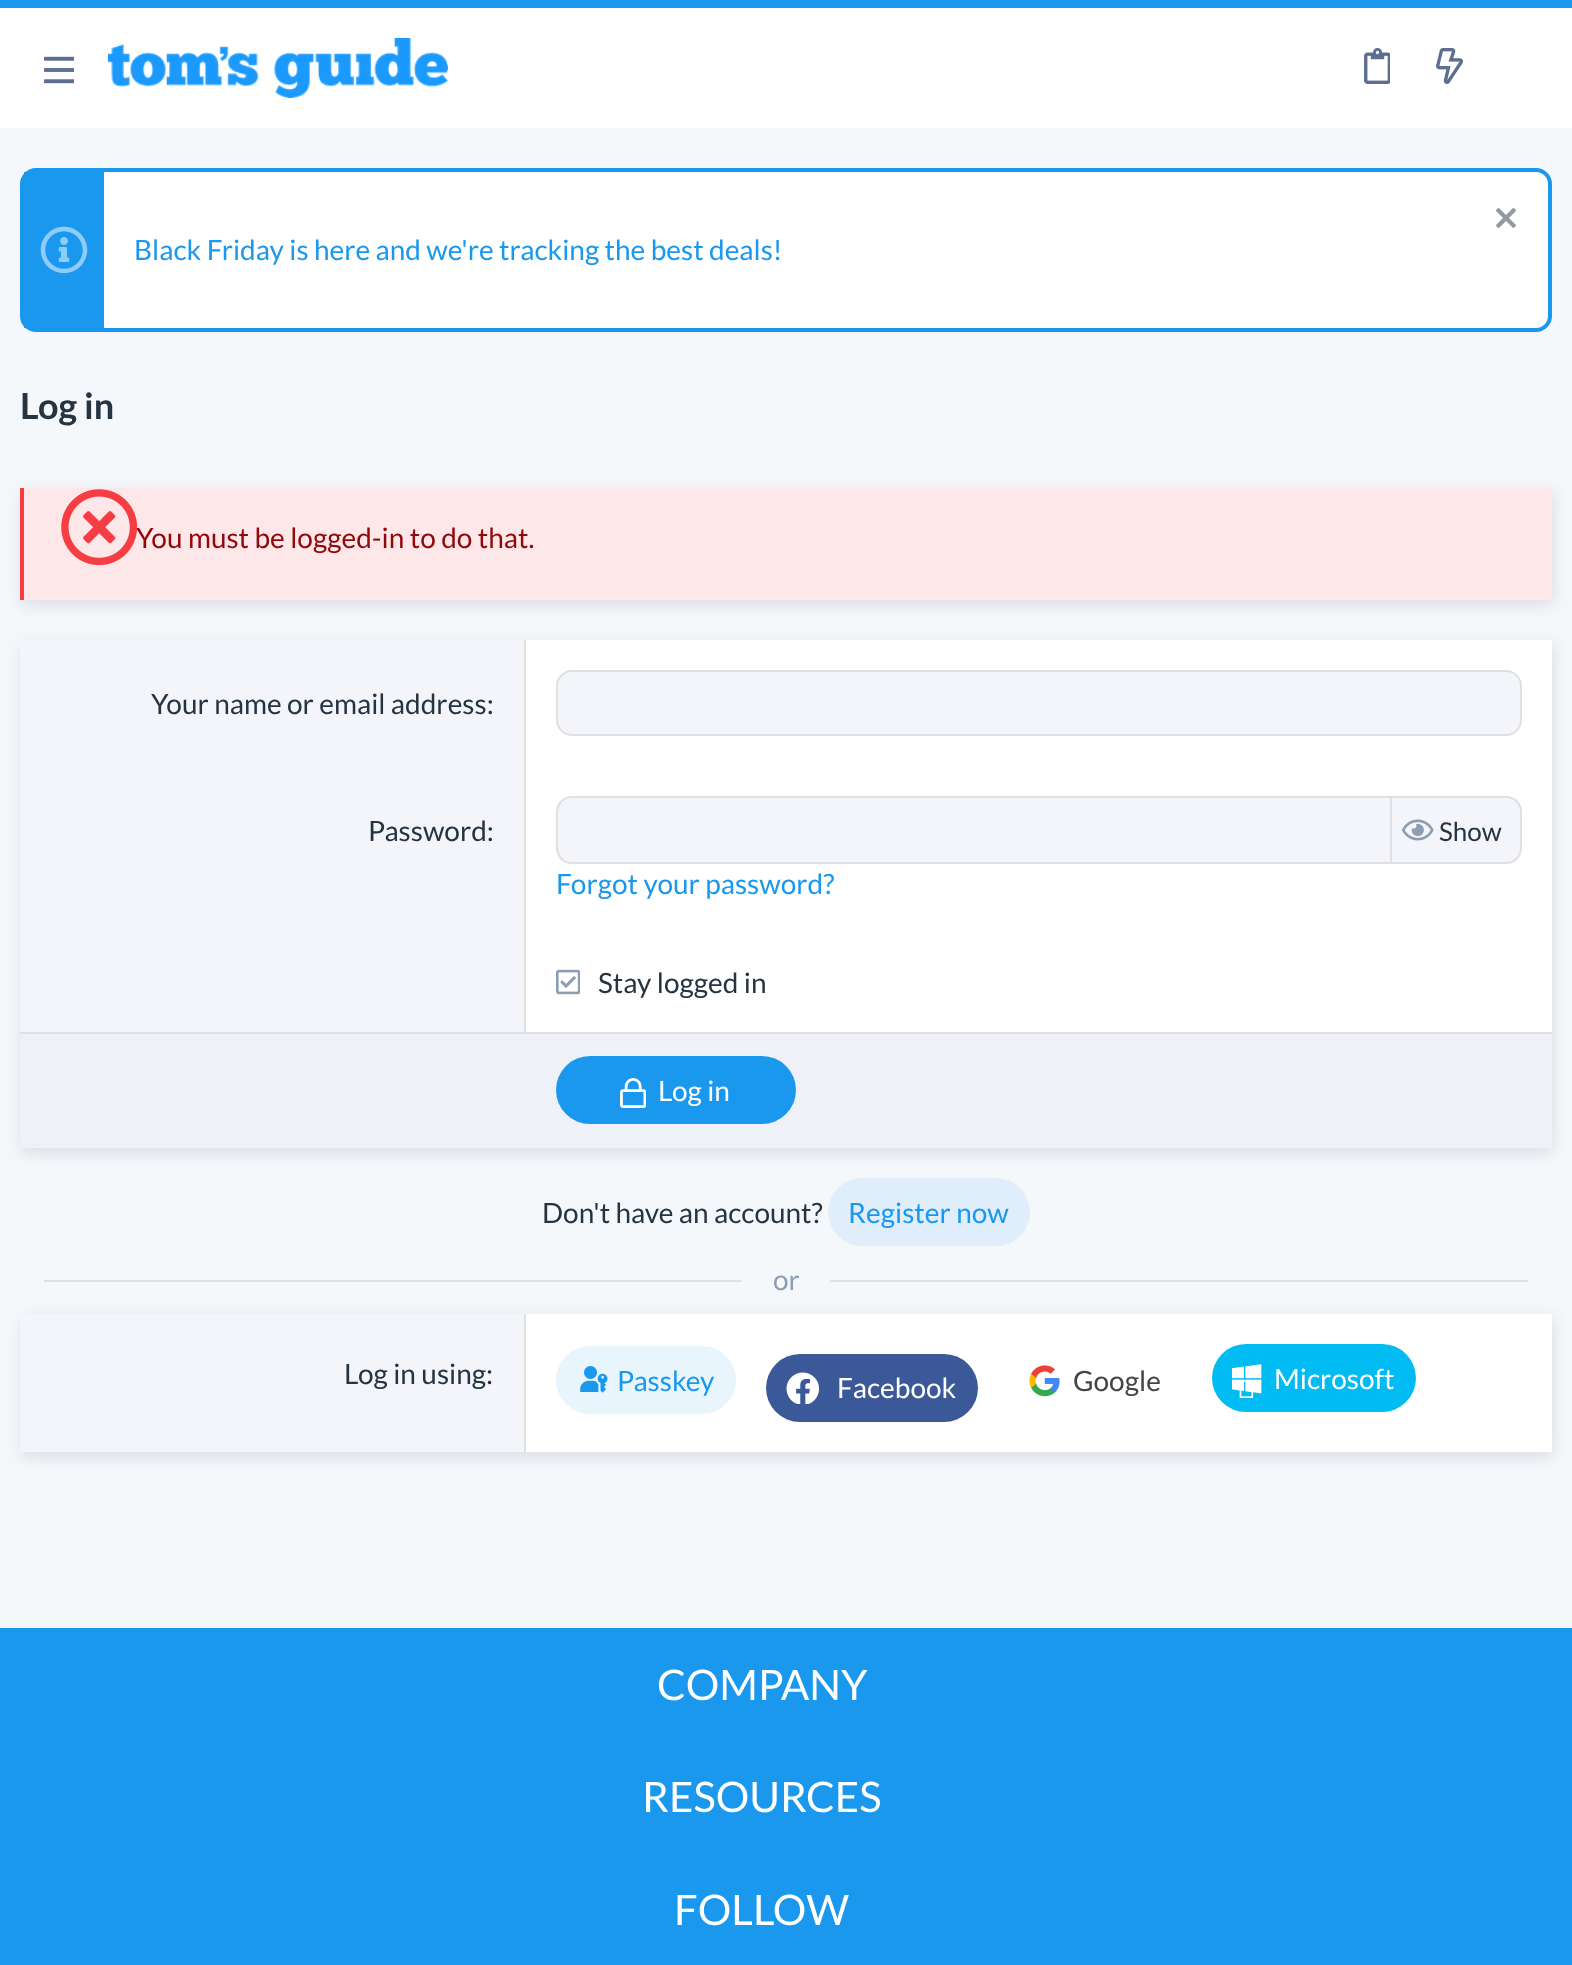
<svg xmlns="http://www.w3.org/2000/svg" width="1572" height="1965">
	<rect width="100%" height="100%" fill="#F5F8FB" />
	<rect x="0" y="8" width="1572" height="120" fill="#FFFFFF" />
	<rect x="0" y="0" width="1572" height="8" fill="#1A98EE" />
	<image x="44" y="56" width="30" height="28" href="assets/img1.png" />
	<image x="108" y="38" width="340" height="60" href="assets/img2.png" />
	<image x="1364" y="48" width="26" height="36" href="assets/img3.png" />
	<image x="1436" y="48" width="27" height="36" href="assets/img4.png" />
	<rect x="22" y="170" width="1528" height="160" rx="14" fill="#FFFFFF" stroke="#1A98EE" stroke-width="4" />
	<rect x="24" y="172" width="80" height="156" fill="#1A98EE" />
	<image x="40" y="226" width="48" height="48" href="assets/img5.png" />
	<image x="1496" y="208" width="20" height="20" href="assets/img6.png" />
	<text x="134" y="260" font-family="Lato" font-size="28" fill="#1A98EE">Black Friday is here and we're tracking the best deals!</text>
	<text x="20" y="419" font-family="Lato" font-size="36" font-weight="700" fill="#263341">Log in</text>
	<rect x="24" y="488" width="1532" height="112" fill="#677685" fill-opacity="0.08" filter="blur(8px)" />
	<rect x="20" y="496" width="1532" height="112" fill="#677685" fill-opacity="0.12" filter="blur(8px)" />
	<rect x="24" y="488" width="1528" height="112" fill="#FEE7E8" />
	<rect x="20" y="488" width="4" height="112" fill="#F53D43" />
	<text x="136" y="548" font-family="Lato" font-size="28" fill="#91080C">You must be logged-in to do that.</text>
	<image x="61" y="489" width="77" height="77" href="assets/img7.png" />
	<rect x="24" y="640" width="1532" height="508" fill="#677685" fill-opacity="0.08" filter="blur(8px)" />
	<rect x="20" y="648" width="1532" height="508" fill="#677685" fill-opacity="0.12" filter="blur(8px)" />
	<rect x="526" y="640" width="1026" height="392" fill="#FFFFFF" />
	<rect x="20" y="640" width="504" height="392" fill="#F3F5FA" />
	<rect x="524" y="640" width="2" height="392" fill="#E0E0E0" />
	<text x="151" y="714" font-family="Lato" font-size="28" fill="#263341">Your name or email address:</text>
	<rect x="557" y="671" width="964" height="64" rx="15" fill="#F3F5FA" stroke="#E0E0E0" stroke-width="2" />
	<text x="368" y="841" font-family="Lato" font-size="28" fill="#263341">Password:</text>
	<path d="M572 796H1390V864H572C563 864 556 857 556 848V812C556 803 563 796 572 796Z" fill="#F3F5FA" />
	<path d="M572 796H1390V864H572C563 864 556 857 556 848V812C556 803 563 796 572 796ZM572 798H1390V862H572C555 862 558 841 558 830C558 819 555 798 572 798Z" fill="#E0E0E0" fill-rule="evenodd" />
	<path d="M1391 797H1506C1514.5 797 1521 803.5 1521 812V848C1521 856.5 1514.5 863 1506 863H1391Z" fill="#F3F5FA" stroke="#E0E0E0" stroke-width="2" />
	<image x="1402" y="819" width="32" height="22" href="assets/img8.png" />
	<text x="1439" y="841" font-family="Lato" font-size="26" fill="#263341">Show</text>
	<text x="556" y="894" font-family="Lato" font-size="28" fill="#1A98EE">Forgot your password?</text>
	<image x="556" y="969" width="24" height="26" href="assets/img9.png" />
	<text x="598" y="993" font-family="Lato" font-size="28" fill="#263341">Stay logged in</text>
	<rect x="20" y="1034" width="1532" height="114" fill="#EEF1F8" />
	<rect x="20" y="1032" width="1532" height="2" fill="#E0E0E0" />
	<rect x="556" y="1056" width="240" height="68" rx="34" fill="#1A98EE" />
	<image x="620" y="1078" width="26" height="30" href="assets/img10.png" />
	<text x="658" y="1101" font-family="Lato" font-size="28" fill="#FFFFFF">Log in</text>
	<text x="542" y="1223" font-family="Lato" font-size="28" fill="#263341">Don't have an account?</text>
	<rect x="828" y="1178" width="202" height="68" rx="34" fill="#DFEEFA" />
	<text x="848" y="1223" font-family="Lato" font-size="28" fill="#1A98EE">Register now</text>
	<rect x="44" y="1280" width="698" height="2" fill="#E0E0E0" />
	<rect x="24" y="1314" width="1532" height="138" fill="#677685" fill-opacity="0.08" filter="blur(8px)" />
	<text x="773" y="1290" font-family="Lato" font-size="28" fill="#8C9EB1">or</text>
	<rect x="830" y="1280" width="698" height="2" fill="#E0E0E0" />
	<rect x="20" y="1322" width="1532" height="138" fill="#677685" fill-opacity="0.12" filter="blur(8px)" />
	<rect x="526" y="1314" width="1026" height="138" fill="#FFFFFF" />
	<rect x="20" y="1314" width="504" height="138" fill="#F3F5FA" />
	<rect x="524" y="1314" width="2" height="138" fill="#E0E0E0" />
	<text x="344" y="1384" font-family="Lato" font-size="28" fill="#263341">Log in using:</text>
	<rect x="556" y="1346" width="180" height="68" rx="34" fill="#E8F5FD" />
	<image x="580" y="1366" width="28" height="27" href="assets/img11.png" />
	<text x="617" y="1391" font-family="Lato" font-size="28" fill="#1A98EE">Passkey</text>
	<rect x="766" y="1354" width="212" height="68" rx="34" fill="#3B5998" />
	<image x="786" y="1372" width="34" height="32" href="assets/img12.png" />
	<text x="837" y="1398" font-family="Lato" font-size="28" fill="#FFFFFF">Facebook</text>
	<image x="1029" y="1365" width="31" height="32" href="assets/img13.png" />
	<text x="1073" y="1391" font-family="Lato" font-size="28" fill="#444444">Google</text>
	<rect x="1212" y="1344" width="204" height="68" rx="34" fill="#00BCF2" />
	<image x="1232" y="1364" width="30" height="30" href="assets/img14.png" />
	<image x="1239" y="1380" width="15" height="18" href="assets/img15.png" />
	<text x="1274" y="1389" font-family="Lato" font-size="28" fill="#FFFFFF">Microsoft</text>
	<rect x="0" y="1628" width="1572" height="337" fill="#1A98EE" />
	<g font-family="Lato" font-size="42" fill="#FFFFFF">
		<text x="657" y="1700">COMPANY</text>
		<text x="642" y="1812">RESOURCES</text>
		<text x="674" y="1925">FOLLOW</text>
	</g>
</svg>
